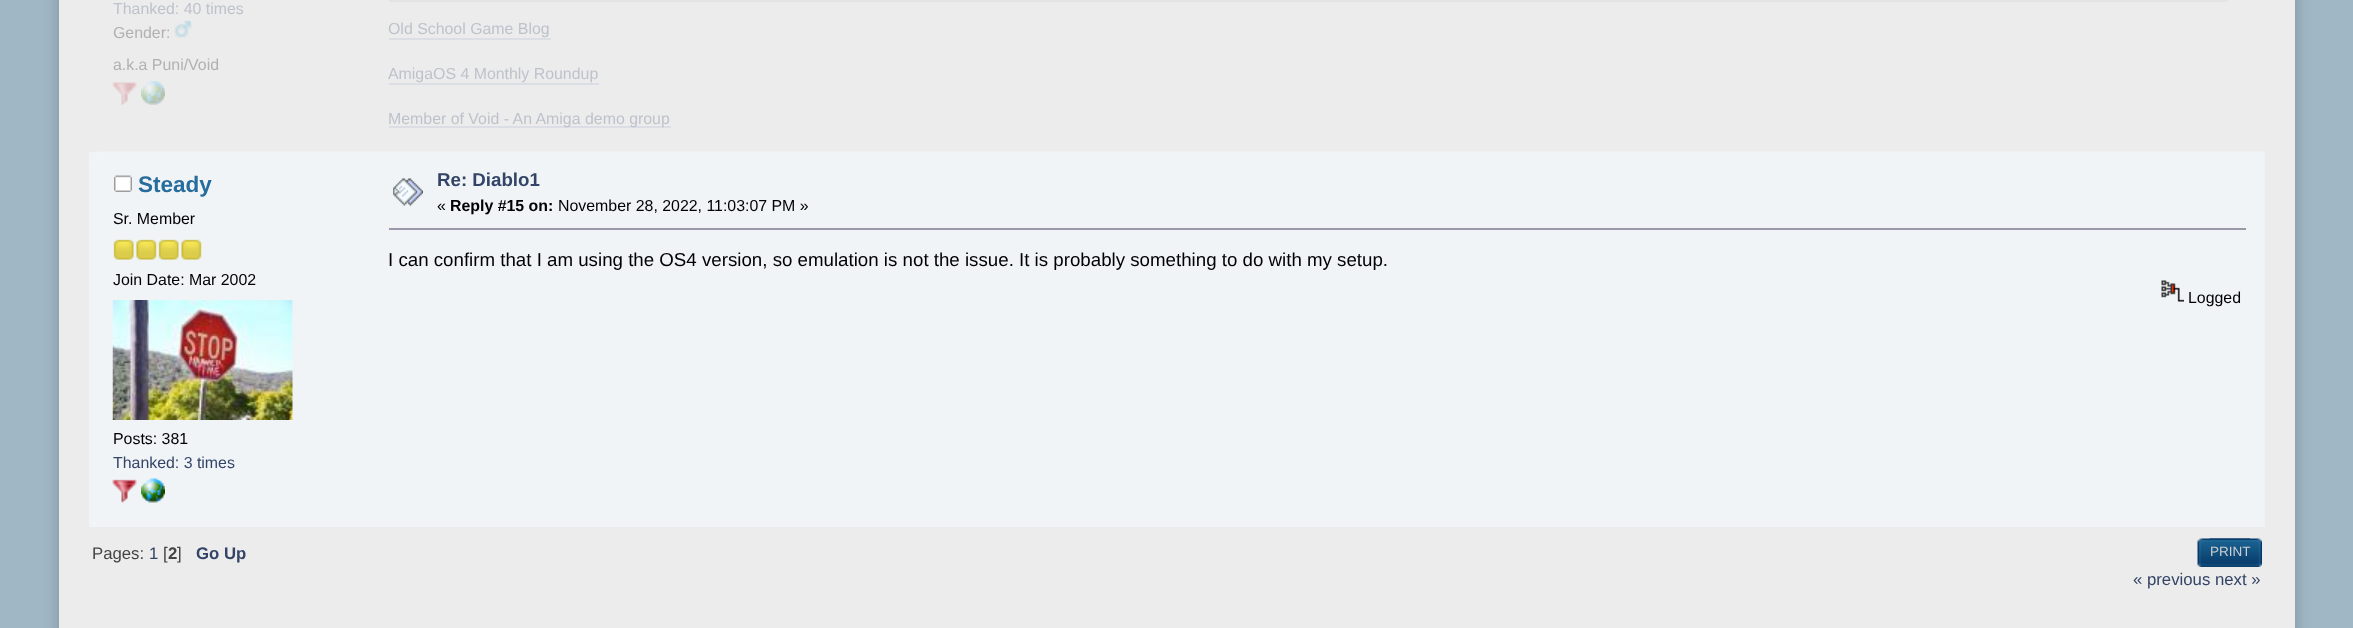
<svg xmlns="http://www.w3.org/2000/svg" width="2353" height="628">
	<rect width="100%" height="100%" fill="#A0B7C6" />
	<rect x="59" y="-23" width="2236" height="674" fill="#000000" fill-opacity="0.2" filter="blur(7.5px)" />
	<rect x="59" y="0" width="2236" height="628" fill="#ECECEC" />
	<text x="113" y="14" font-family="Liberation Sans" font-size="15.9" fill="#BEC2CB">Thanked: 40 times</text>
	<text x="113" y="38" font-family="Liberation Sans" font-size="15.9" fill="#B1B1B1">Gender:</text>
	<image x="174" y="20" width="18" height="18" href="assets/img1.png" />
	<text x="113" y="70" font-family="Liberation Sans" font-size="15.9" fill="#B1B1B1">a.k.a Puni/Void</text>
	<image x="112" y="82" width="25" height="23" href="assets/img2.png" />
	<image x="141" y="81" width="24" height="24" href="assets/img3.png" />
	<rect x="389" y="0" width="1839" height="2" fill="#E4E4E4" />
	<text x="388" y="34" font-family="Liberation Sans" font-size="15.9" fill="#BEC2CB">Old School Game Blog</text>
	<rect x="389" y="38" width="162" height="2" fill="#DBDFE5" />
	<text x="388" y="79" font-family="Liberation Sans" font-size="15.9" fill="#BEC2CB">AmigaOS 4 Monthly Roundup</text>
	<rect x="389" y="83" width="210" height="2" fill="#DBDFE5" />
	<rect x="389" y="126" width="282" height="2" fill="#DBDFE5" />
	<text x="388" y="124" font-family="Liberation Sans" font-size="15.9" fill="#BEC2CB">Member of Void - An Amiga demo group</text>
	<rect x="89" y="152" width="2176" height="375" fill="#F0F4F7" />
	<image x="88" y="151" width="2177" height="17" href="assets/img4.png" />
	<image x="114" y="175" width="18" height="17" href="assets/img5.png" />
	<text x="138" y="192" font-family="Liberation Sans" font-size="22.5" font-weight="700" fill="#266C9D">Steady</text>
	<text x="113" y="224" font-family="Liberation Sans" font-size="15.9" fill="#000000">Sr. Member</text>
	<image x="113" y="239" width="21" height="21" href="assets/img6.png" />
	<image x="136" y="239" width="21" height="21" href="assets/img7.png" />
	<image x="158" y="239" width="21" height="21" href="assets/img6.png" />
	<image x="181" y="239" width="21" height="21" href="assets/img7.png" />
	<text x="113" y="285" font-family="Liberation Sans" font-size="15.9" fill="#000000">Join Date: Mar 2002</text>
	<image x="112" y="300" width="181" height="120" href="assets/img8.png" />
	<text x="113" y="444" font-family="Liberation Sans" font-size="15.9" fill="#000000">Posts: 381</text>
	<text x="113" y="468" font-family="Liberation Sans" font-size="15.9" fill="#334466">Thanked: 3 times</text>
	<image x="112" y="479" width="25" height="24" href="assets/img9.png" />
	<image x="141" y="478" width="24" height="25" href="assets/img10.png" />
	<image x="393" y="178" width="30" height="28" href="assets/img11.png" />
	<text x="437" y="186" font-family="Liberation Sans" font-size="18.72" font-weight="700" fill="#334466">Re: Diablo1</text>
	<text x="437" y="211" font-family="Liberation Sans" font-size="15.9" fill="#000000">«</text>
	<text x="450" y="211" font-family="Liberation Sans" font-size="15.9" font-weight="700" fill="#000000">Reply #15 on:</text>
	<text x="558" y="211" font-family="Liberation Sans" font-size="15.9" fill="#000000">November 28, 2022, 11:03:07 PM »</text>
	<rect x="389" y="228" width="1857" height="2" fill="#9999AA" />
	<text x="388" y="266" font-family="Liberation Sans" font-size="18.72" fill="#000000">I can confirm that I am using the OS4 version, so emulation is not the issue. It is probably something to do with my setup.</text>
	<image x="2161" y="280" width="23" height="22" href="assets/img12.png" />
	<text x="2188" y="303" font-family="Liberation Sans" font-size="15.9" fill="#000000">Logged</text>
	<image x="88" y="510" width="8" height="15" href="assets/img13.png" />
	<text x="92" y="559" font-family="Liberation Sans" font-size="16.75" fill="#444444">Pages:</text>
	<text x="149" y="559" font-family="Liberation Sans" font-size="16.75" fill="#334466">1</text>
	<text x="163" y="559" font-family="Liberation Sans" font-size="16.75" fill="#444444">[</text>
	<text x="168" y="559" font-family="Liberation Sans" font-size="16.75" font-weight="700" fill="#444444">2</text>
	<text x="177" y="559" font-family="Liberation Sans" font-size="16.75" fill="#444444">]</text>
	<text x="196" y="559" font-family="Liberation Sans" font-size="16.75" font-weight="700" fill="#334466">Go Up</text>
	<rect x="2198" y="539" width="6" height="28" fill="#E8E8E8" />
	<image x="2197" y="538" width="53" height="29" href="assets/img14.png" />
	<image x="2209" y="538" width="53" height="29" href="assets/img15.png" />
	<text x="2210" y="556" font-family="Liberation Sans" font-size="13.5" fill="#CECECE">PRINT</text>
	<text x="2133" y="585" font-family="Liberation Sans" font-size="16.75" fill="#334466">« previous next »</text>
</svg>
